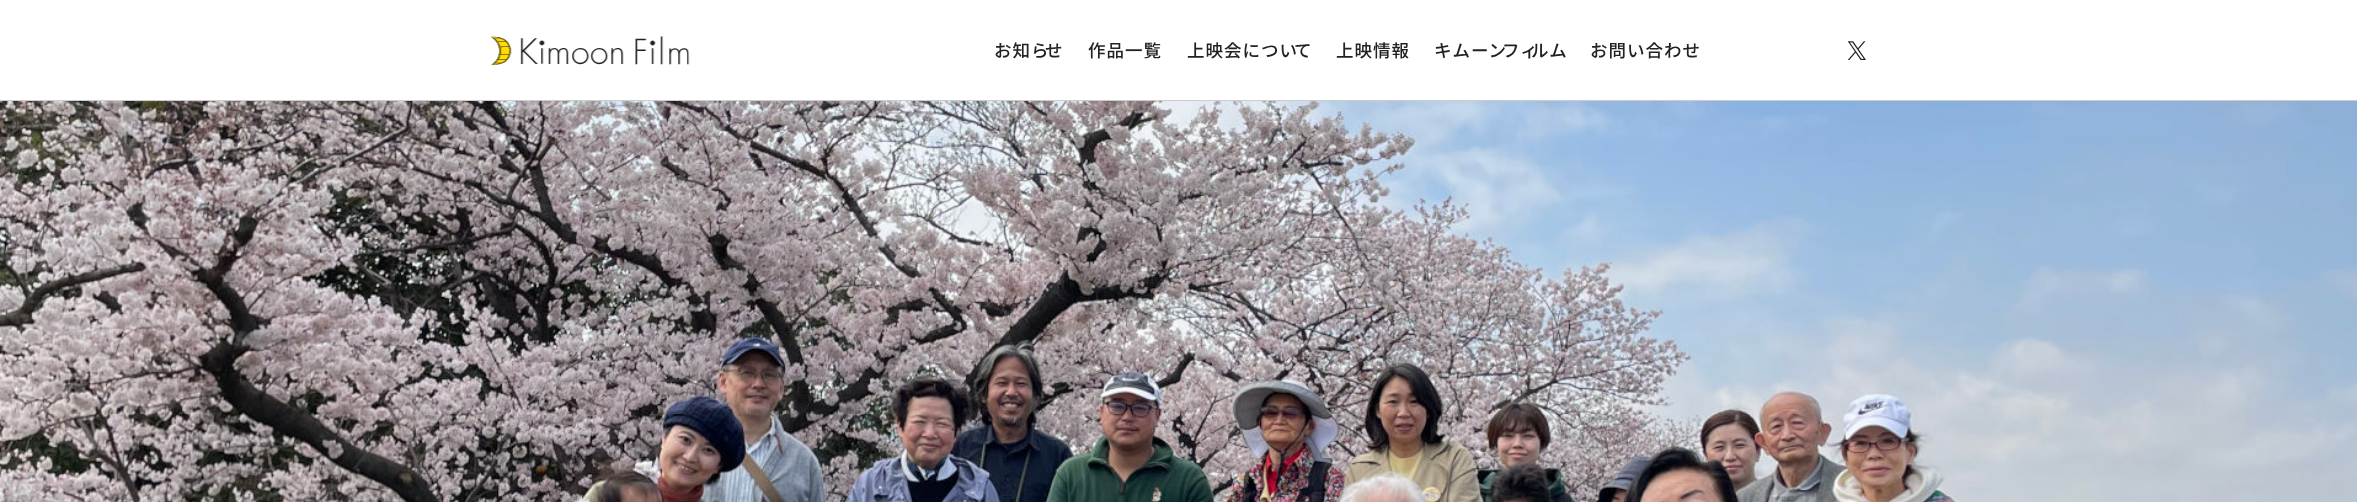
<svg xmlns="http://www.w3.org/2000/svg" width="2357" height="502">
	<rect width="100%" height="100%" fill="#FFFFFF" />
	<rect x="0" y="100" width="2357" height="1" fill="#CCCCCC" />
	<image x="491" y="36" width="199" height="29" href="assets/img1.png" />
	<g font-family="Noto Sans JP" font-size="17.5" font-weight="500" letter-spacing="1" fill="#222222">
		<text x="994" y="57">お知ら</text>
		<text x="1045" y="57">せ</text>
		<text x="1088" y="57">作品一覧</text>
		<text x="1187" y="57">上映会につい</text>
		<text x="1294" y="57">て</text>
		<text x="1336" y="57">上映情報</text>
		<text x="1434" y="57">キムーン</text>
		<text x="1502" y="57">フィ</text>
		<text x="1531" y="57">ルム</text>
		<text x="1590" y="57">お問い合わせ</text>
	</g>
	<image x="1848" y="41" width="18" height="19" href="assets/img2.png" />
	<image x="0" y="101" width="2357" height="401" href="assets/img3.png" />
</svg>
